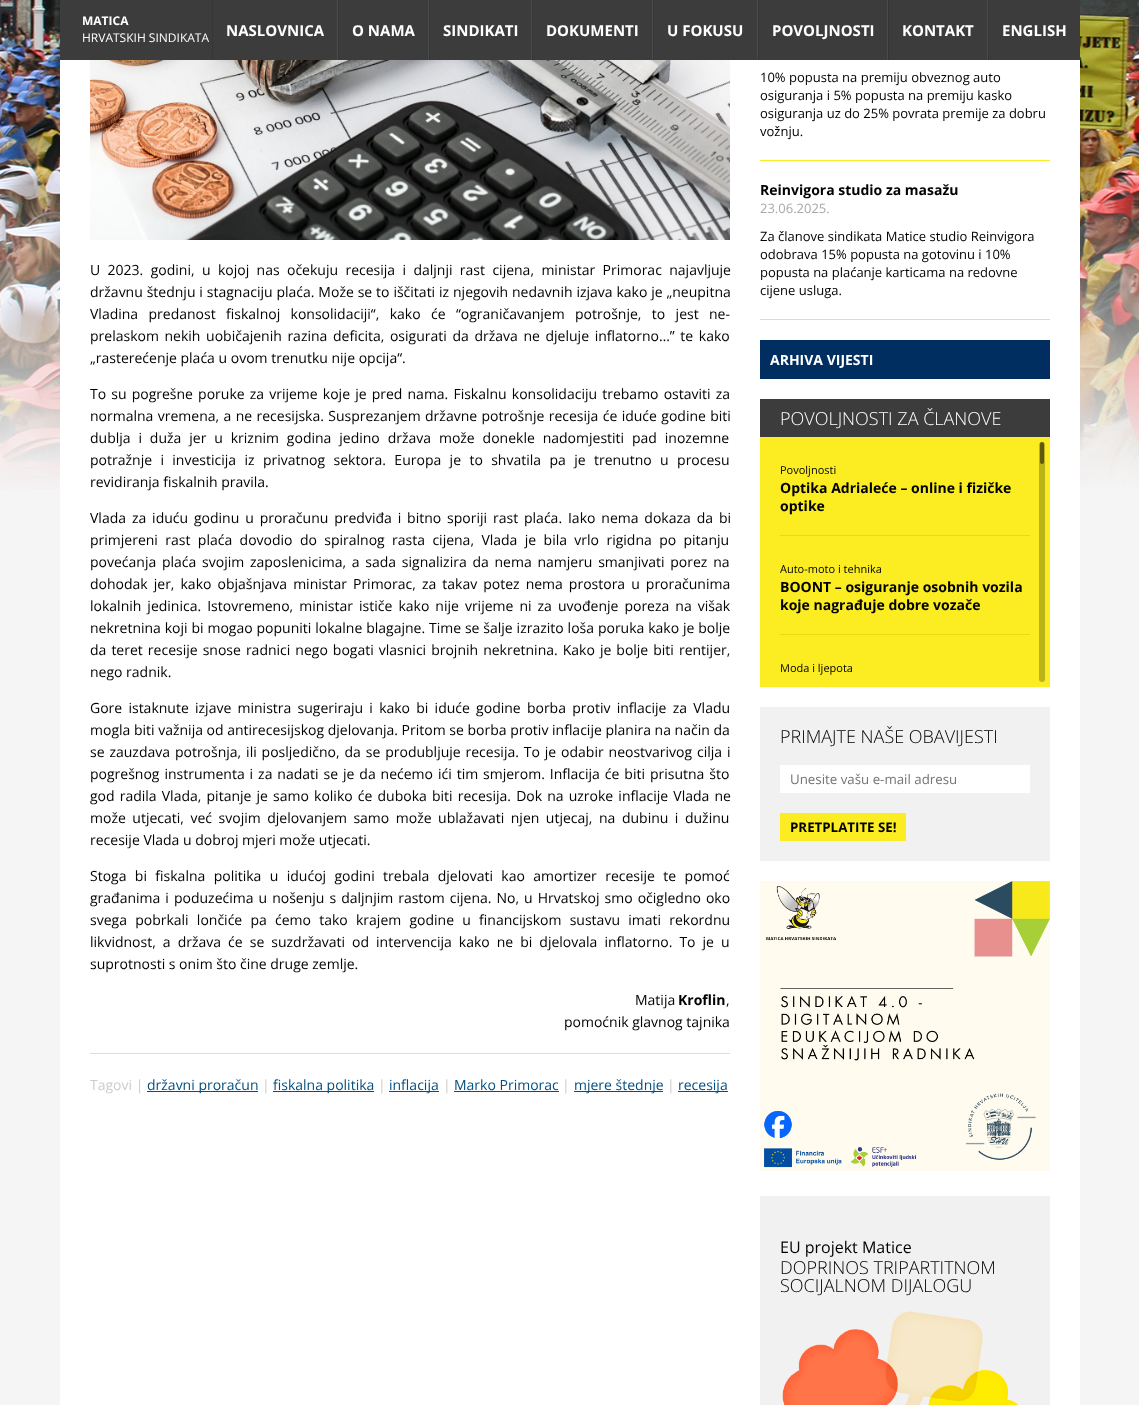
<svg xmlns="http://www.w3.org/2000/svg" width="1139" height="1405">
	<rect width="100%" height="100%" fill="#F5F5F5" />
	<image x="0" y="0" width="1139" height="489" href="assets/img1.png" />
	<rect x="60" y="0" width="1020" height="60" fill="#3C3C3C" />
	<text x="82" y="25" font-family="Open Sans" font-size="12" font-weight="700" fill="#FFFFFF">MATICA</text>
	<text x="82" y="42" font-family="Open Sans" font-size="12" fill="#FFFFFF">HRVATSKIH SINDIKATA</text>
	<rect x="337" y="0" width="1" height="60" fill="#494B4C" />
	<rect x="212" y="0" width="1" height="60" fill="#363636" />
	<text x="226" y="36" font-family="Open Sans" font-size="15" font-weight="700" fill="#FFFFFF">NASLOVNICA</text>
	<rect x="428" y="0" width="1" height="60" fill="#494B4C" />
	<rect x="338" y="0" width="1" height="60" fill="#363636" />
	<text x="352" y="36" font-family="Open Sans" font-size="15" font-weight="700" fill="#FFFFFF">O NAMA</text>
	<rect x="531" y="0" width="1" height="60" fill="#494B4C" />
	<rect x="429" y="0" width="1" height="60" fill="#363636" />
	<text x="443" y="36" font-family="Open Sans" font-size="15" font-weight="700" fill="#FFFFFF">SINDIKATI</text>
	<rect x="652" y="0" width="1" height="60" fill="#494B4C" />
	<rect x="532" y="0" width="1" height="60" fill="#363636" />
	<text x="546" y="36" font-family="Open Sans" font-size="15" font-weight="700" fill="#FFFFFF">DOKUMENTI</text>
	<rect x="757" y="0" width="1" height="60" fill="#494B4C" />
	<rect x="653" y="0" width="1" height="60" fill="#363636" />
	<text x="667" y="36" font-family="Open Sans" font-size="15" font-weight="700" fill="#FFFFFF">U FOKUSU</text>
	<rect x="887" y="0" width="1" height="60" fill="#494B4C" />
	<rect x="758" y="0" width="1" height="60" fill="#363636" />
	<text x="772" y="36" font-family="Open Sans" font-size="15" font-weight="700" fill="#FFFFFF">POVOLJNOSTI</text>
	<rect x="987" y="0" width="1" height="60" fill="#494B4C" />
	<rect x="888" y="0" width="1" height="60" fill="#363636" />
	<text x="902" y="36" font-family="Open Sans" font-size="15" font-weight="700" fill="#FFFFFF">KONTAKT</text>
	<rect x="988" y="0" width="1" height="60" fill="#363636" />
	<text x="1002" y="36" font-family="Open Sans" font-size="15" font-weight="700" fill="#FFFFFF">ENGLISH</text>
	<rect x="60" y="60" width="1020" height="1345" fill="#FFFFFF" />
	<image x="90" y="60" width="640" height="180" href="assets/img2.png" />
	<g font-family="Open Sans" font-size="14" fill="#000000">
		<text x="90" y="275" word-spacing="3.75">U 2023. godini, u kojoj nas očekuju recesija i daljnji rast cijena, ministar Primorac najavljuje</text>
		<text x="90" y="297" word-spacing="0.25">državnu štednju i stagnaciju plaća. Može se to iščitati iz njegovih nedavnih izjava kako je „neupitna</text>
		<text x="90" y="319" word-spacing="6.75">Vladina predanost fiskalnoj konsolidaciji“, kako će “ograničavanjem potrošnje, to jest ne-</text>
		<text x="90" y="341" word-spacing="2">prelaskom nekih uobičajenih razina deficita, osigurati da država ne djeluje inflatorno…” te kako</text>
		<text x="90" y="363">„rasterećenje plaća u ovom trenutku nije opcija“.</text>
		<text x="90" y="399" word-spacing="1.5">To su pogrešne poruke za vrijeme koje je pred nama. Fiskalnu konsolidaciju trebamo ostaviti za</text>
		<text x="90" y="421" word-spacing="0.75">normalna vremena, a ne recesijska. Susprezanjem državne potrošnje recesija će iduće godine biti</text>
		<text x="90" y="443" word-spacing="4.25">dublja i duža jer u kriznim godina jedino država može donekle nadomjestiti pad inozemne</text>
		<text x="90" y="465" word-spacing="4.75">potražnje i investicija iz privatnog sektora. Europa je to shvatila pa je trenutno u procesu</text>
		<text x="90" y="487">revidiranja fiskalnih pravila.</text>
		<text x="90" y="523" word-spacing="2.25">Vlada za iduću godinu u proračunu predviđa i bitno sporiji rast plaća. Iako nema dokaza da bi</text>
		<text x="90" y="545" word-spacing="3.75">primjereni rast plaća dovodio do spiralnog rasta cijena, Vlada je bila vrlo rigidna po pitanju</text>
		<text x="90" y="567" word-spacing="2.1">povećanja plaća svojim zaposlenicima, a sada signalizira da nema namjeru smanjivati porez na</text>
		<text x="90" y="589" word-spacing="2.4">dohodak jer, kako objašnjava ministar Primorac, za takav potez nema prostora u proračunima</text>
		<text x="90" y="611" word-spacing="2.4">lokalnih jedinica. Istovremeno, ministar ističe kako nije vrijeme ni za uvođenje poreza na višak</text>
		<text x="90" y="633" word-spacing="0.25">nekretnina koji bi mogao popuniti lokalne blagajne. Time se šalje izrazito loša poruka kako je bolje</text>
		<text x="90" y="655" word-spacing="1.4">da teret recesije snose radnici nego bogati vlasnici brojnih nekretnina. Kako je bolje biti rentijer,</text>
		<text x="90" y="677">nego radnik.</text>
		<text x="90" y="713" word-spacing="2.6">Gore istaknute izjave ministra sugeriraju i kako bi iduće godine borba protiv inflacije za Vladu</text>
		<text x="90" y="735">mogla biti važnija od antirecesijskog djelovanja. Pritom se borba protiv inflacije planira na način da</text>
		<text x="90" y="757" word-spacing="1.25">se zauzdava potrošnja, ili posljedično, da se produbljuje recesija. To je odabir neostvarivog cilja i</text>
		<text x="90" y="779" word-spacing="1.3">pogrešnog instrumenta i za nadati se je da nećemo ići tim smjerom. Inflacija će biti prisutna što</text>
		<text x="90" y="801" word-spacing="1.5">god radila Vlada, pitanje je samo koliko će duboka biti recesija. Dok na uzroke inflacije Vlada ne</text>
		<text x="90" y="823" word-spacing="2.9">može utjecati, već svojim djelovanjem samo može ublažavati njen utjecaj, na dubinu i dužinu</text>
		<text x="90" y="845">recesije Vlada u dobroj mjeri može utjecati.</text>
		<text x="90" y="881" word-spacing="4.75">Stoga bi fiskalna politika u idućoj godini trebala djelovati kao amortizer recesije te pomoć</text>
		<text x="90" y="903" word-spacing="1.4">građanima i poduzećima u nošenju s daljnjim rastom cijena. No, u Hrvatskoj smo očigledno oko</text>
		<text x="90" y="925" word-spacing="4.6">svega pobrkali lončiće pa ćemo tako krajem godine u financijskom sustavu imati rekordnu</text>
		<text x="90" y="947" word-spacing="3.4">likvidnost, a država će se suzdržavati od intervencija kako ne bi djelovala inflatorno. To je u</text>
		<text x="90" y="969">suprotnosti s onim što čine druge zemlje.</text>
		<text x="635" y="1005">Matija</text>
	</g>
	<text x="678" y="1005" font-family="Open Sans" font-size="14" font-weight="700" fill="#000000">Kroflin</text>
	<g font-family="Open Sans" font-size="14" fill="#000000">
		<text x="726" y="1005">,</text>
		<text x="564" y="1027">pomoćnik glavnog tajnika</text>
	</g>
	<rect x="90" y="1053" width="640" height="1" fill="#DDDDDD" />
	<text x="90" y="1090" font-family="Open Sans" font-size="14" fill="#CCCCCC">Tagovi |</text>
	<rect x="147" y="1091" width="111" height="1" fill="#024F83" />
	<text x="147" y="1090" font-family="Open Sans" font-size="14" fill="#024F83">državni proračun</text>
	<text x="262" y="1090" font-family="Open Sans" font-size="14" fill="#CCCCCC">|</text>
	<rect x="273" y="1091" width="101" height="1" fill="#024F83" />
	<text x="273" y="1090" font-family="Open Sans" font-size="14" fill="#024F83">fiskalna politika</text>
	<text x="378" y="1090" font-family="Open Sans" font-size="14" fill="#CCCCCC">|</text>
	<rect x="389" y="1091" width="50" height="1" fill="#024F83" />
	<text x="389" y="1090" font-family="Open Sans" font-size="14" fill="#024F83">inflacija</text>
	<text x="443" y="1090" font-family="Open Sans" font-size="14" fill="#CCCCCC">|</text>
	<text x="454" y="1090" font-family="Open Sans" font-size="14" fill="#024F83">Marko Primorac</text>
	<rect x="454" y="1091" width="105" height="1" fill="#024F83" />
	<text x="562" y="1090" font-family="Open Sans" font-size="14" fill="#CCCCCC">|</text>
	<rect x="574" y="1091" width="89" height="1" fill="#024F83" />
	<text x="574" y="1090" font-family="Open Sans" font-size="14" fill="#024F83">mjere štednje</text>
	<text x="667" y="1090" font-family="Open Sans" font-size="14" fill="#CCCCCC">|</text>
	<rect x="678" y="1091" width="50" height="1" fill="#024F83" />
	<text x="678" y="1090" font-family="Open Sans" font-size="14" fill="#024F83">recesija</text>
	<rect x="760" y="160" width="290" height="1" fill="#FBED22" />
	<g font-family="Open Sans" font-size="13" fill="#000000">
		<text x="760" y="82">10% popusta na premiju obveznog auto</text>
		<text x="760" y="100">osiguranja i 5% popusta na premiju kasko</text>
		<text x="760" y="118">osiguranja uz do 25% povrata premije za dobru</text>
		<text x="760" y="136">vožnju.</text>
	</g>
	<rect x="760" y="319" width="290" height="1" fill="#FBED22" />
	<text x="760" y="195" font-family="Open Sans" font-size="14" font-weight="700" fill="#000000">Reinvigora studio za masažu</text>
	<text x="760" y="213" font-family="Open Sans" font-size="13" fill="#AAAAAA">23.06.2025.</text>
	<g font-family="Open Sans" font-size="13" fill="#000000">
		<text x="760" y="241">Za članove sindikata Matice studio Reinvigora</text>
		<text x="760" y="259">odobrava 15% popusta na gotovinu i 10%</text>
		<text x="760" y="277">popusta na plaćanje karticama na redovne</text>
		<text x="760" y="295">cijene usluga.</text>
	</g>
	<rect x="760" y="340" width="290" height="39" fill="#002E61" />
	<text x="770" y="365" font-family="Open Sans" font-size="14" font-weight="700" fill="#FFFFFF">ARHIVA VIJESTI</text>
	<rect x="760" y="399" width="290" height="38" fill="#3C3C3C" />
	<text x="780" y="425" font-family="Open Sans" font-size="18" font-weight="300" fill="#FFFFFF">POVOLJNOSTI ZA ČLANOVE</text>
	<rect x="760" y="437" width="290" height="250" fill="#FBED22" />
	<rect x="780" y="535" width="250" height="1" fill="#E8DA10" />
	<text x="780" y="474" font-family="Open Sans" font-size="11" fill="#000000">Povoljnosti</text>
	<g font-family="Open Sans" font-size="14" font-weight="700" fill="#000000">
		<text x="780" y="493">Optika Adrialeće – online i fizičke</text>
		<text x="780" y="511">optike</text>
	</g>
	<rect x="780" y="634" width="250" height="1" fill="#E8DA10" />
	<text x="780" y="573" font-family="Open Sans" font-size="11" fill="#000000">Auto-moto i tehnika</text>
	<g font-family="Open Sans" font-size="14" font-weight="700" fill="#000000">
		<text x="780" y="592">BOONT – osiguranje osobnih vozila</text>
		<text x="780" y="610">koje nagrađuje dobre vozače</text>
	</g>
	<text x="780" y="672" font-family="Open Sans" font-size="11" fill="#000000">Moda i ljepota</text>
	<rect x="1039" y="442" width="6" height="240" rx="3" fill="#BCB21A" />
	<rect x="1040" y="442" width="4" height="22" rx="2" fill="#000000" fill-opacity="0.5" />
	<rect x="760" y="707" width="290" height="154" fill="#F1F1F1" />
	<text x="780" y="743" font-family="Open Sans" font-size="18" font-weight="300" fill="#000000">PRIMAJTE NAŠE OBAVIJESTI</text>
	<rect x="780" y="765" width="250" height="28" fill="#FFFFFF" />
	<text x="790" y="784" font-family="Open Sans" font-size="13.3" fill="#757575">Unesite vašu e-mail adresu</text>
	<rect x="780" y="813" width="126" height="28" fill="#FBED22" />
	<text x="790" y="832" font-family="Open Sans" font-size="13.3" font-weight="700" fill="#000000">PRETPLATITE SE!</text>
	<image x="760" y="881" width="290" height="290" href="assets/img3.png" />
	<rect x="760" y="1196" width="290" height="209" fill="#F1F1F1" />
	<text x="780" y="1253" font-family="Open Sans" font-size="16" fill="#000000">EU projekt Matice</text>
	<g font-family="Open Sans" font-size="18" font-weight="300" fill="#000000">
		<text x="780" y="1274">DOPRINOS TRIPARTITNOM</text>
		<text x="780" y="1292">SOCIJALNOM DIJALOGU</text>
	</g>
	<image x="782" y="1311" width="236" height="94" href="assets/img4.png" />
</svg>
